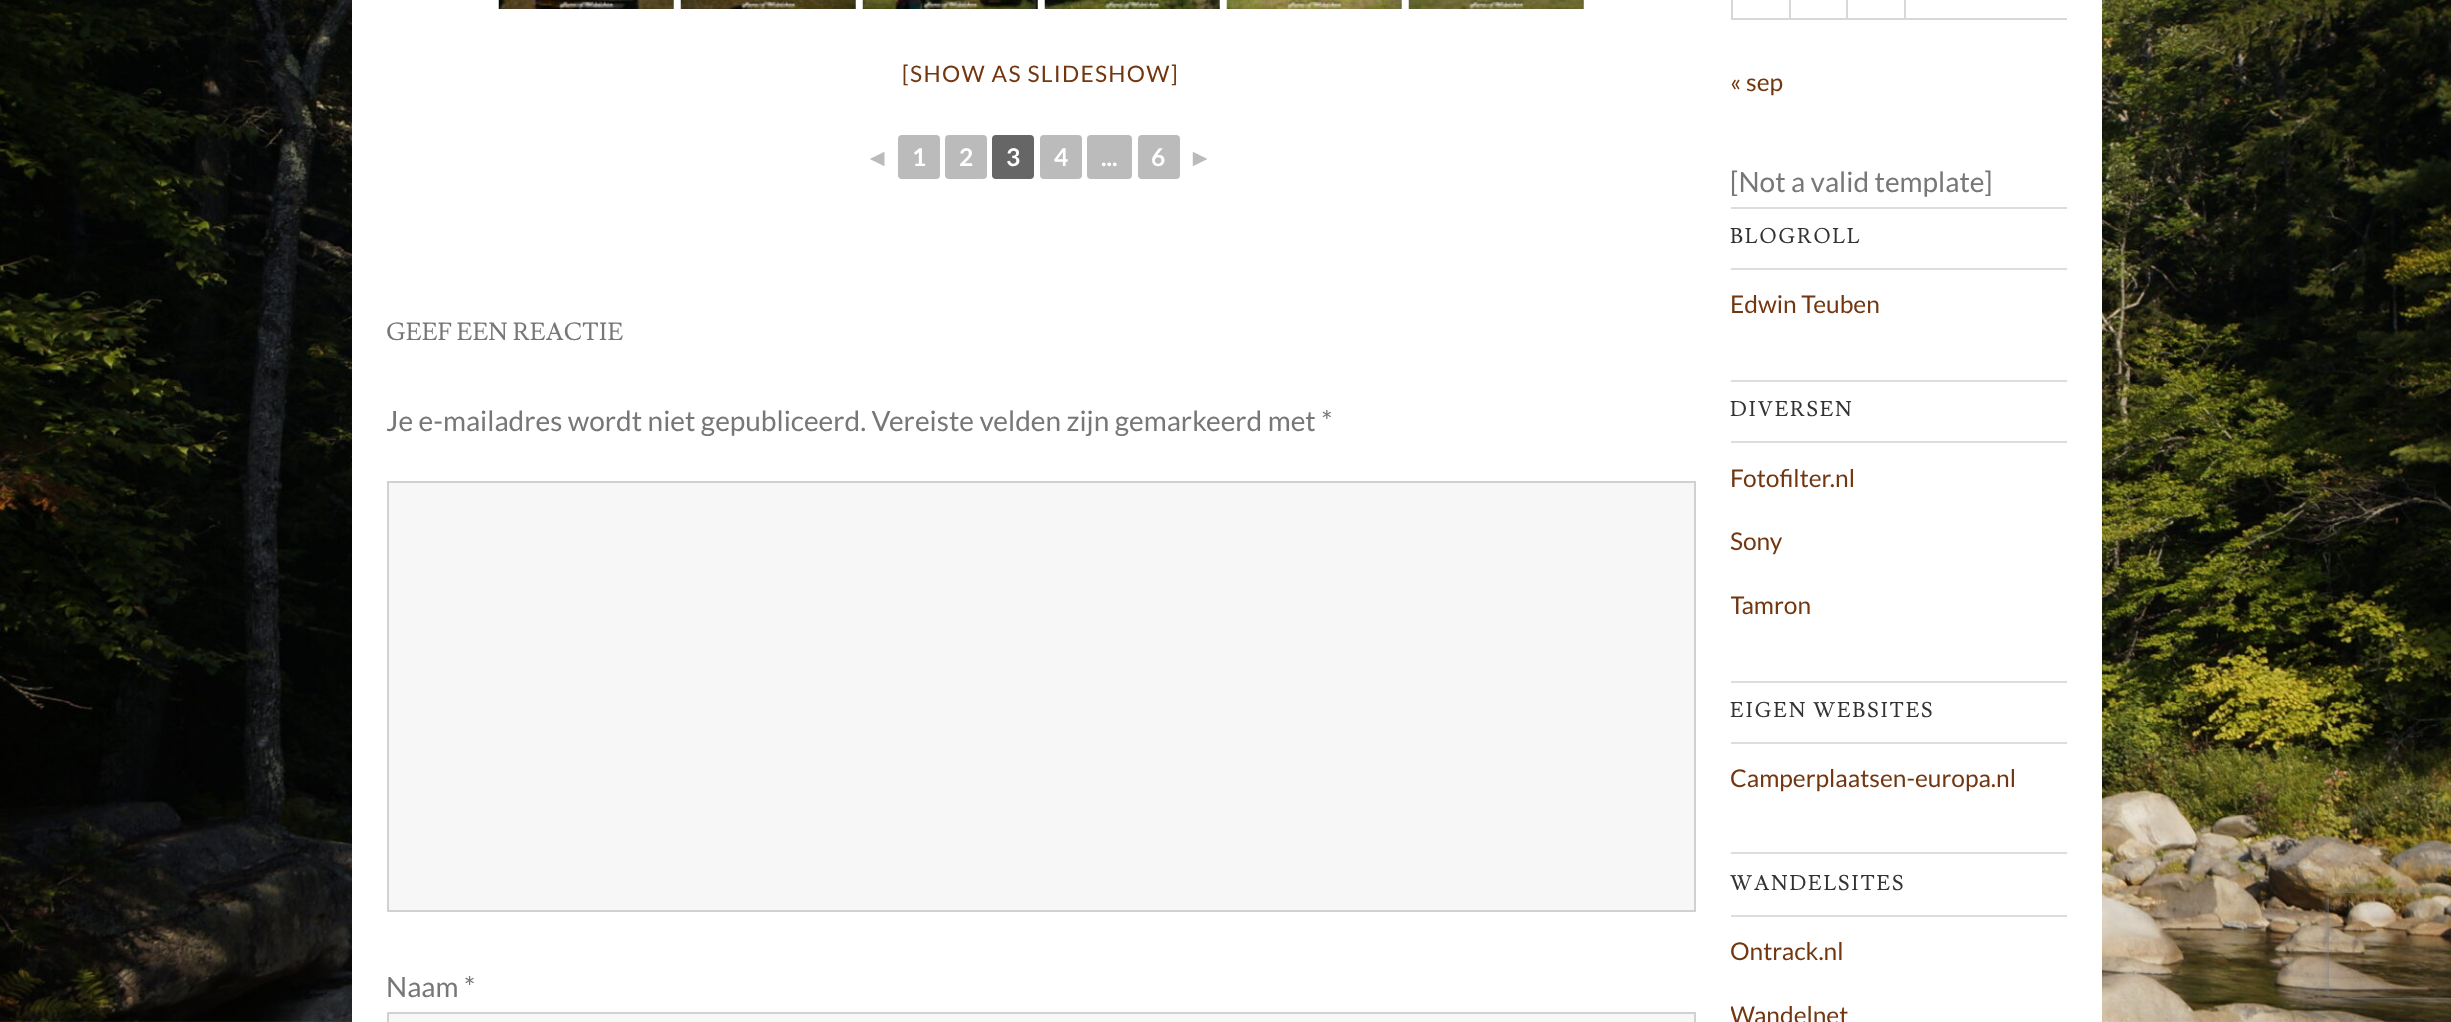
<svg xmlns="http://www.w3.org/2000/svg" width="2451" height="1022">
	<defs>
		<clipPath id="clip1"><rect x="1731" y="0" width="336" height="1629" /></clipPath>
		<clipPath id="clip2"><path d="M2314 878H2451V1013H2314ZM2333 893H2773C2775 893 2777 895 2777 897V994C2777 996 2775 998 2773 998H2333C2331 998 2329 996 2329 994V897C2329 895 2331 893 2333 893Z" clip-rule="evenodd" /></clipPath>
	</defs>
	<rect width="100%" height="100%" fill="#FFFFFF" />
	<image x="0" y="0" width="2451" height="1022" href="assets/img1.png" />
	<rect x="352" y="0" width="1750" height="1022" fill="#FFFFFF" />
	<image x="498" y="0" width="176" height="9" href="assets/img2.png" />
	<image x="680" y="0" width="176" height="9" href="assets/img3.png" />
	<image x="862" y="0" width="176" height="9" href="assets/img4.png" />
	<image x="1044" y="0" width="176" height="9" href="assets/img5.png" />
	<image x="1226" y="0" width="176" height="9" href="assets/img6.png" />
	<image x="1408" y="0" width="176" height="9" href="assets/img7.png" />
	<text x="902" y="82" font-family="Lato" font-size="22.75" letter-spacing="1.3" fill="#723710">[SHOW AS SLIDESHOW]</text>
	<text x="865" y="166" font-family="Liberation Sans" font-size="24.5" font-weight="700" fill="#BBBBBB">◄</text>
	<rect x="898" y="135" width="42" height="44" rx="4" fill="#BBBBBB" />
	<text x="912" y="166" font-family="Lato" font-size="24.5" font-weight="700" fill="#FFFFFF">1</text>
	<rect x="945" y="135" width="42" height="44" rx="4" fill="#BBBBBB" />
	<text x="959" y="166" font-family="Lato" font-size="24.5" font-weight="700" fill="#FFFFFF">2</text>
	<rect x="992" y="135" width="42" height="44" rx="4" fill="#666666" />
	<text x="1006" y="166" font-family="Lato" font-size="24.5" font-weight="700" fill="#FFFFFF">3</text>
	<rect x="1040" y="135" width="42" height="44" rx="4" fill="#BBBBBB" />
	<text x="1054" y="166" font-family="Lato" font-size="24.5" font-weight="700" fill="#FFFFFF">4</text>
	<rect x="1087" y="135" width="45" height="44" rx="4" fill="#BBBBBB" />
	<text x="1101" y="166" font-family="Lato" font-size="24.5" font-weight="700" fill="#FFFFFF">...</text>
	<rect x="1138" y="135" width="42" height="44" rx="4" fill="#BBBBBB" />
	<text x="1151" y="166" font-family="Lato" font-size="24.5" font-weight="700" fill="#FFFFFF">6</text>
	<text x="1188" y="166" font-family="Liberation Sans" font-size="24.5" font-weight="700" fill="#BBBBBB">►</text>
	<text x="386" y="340" font-family="Lusitana" font-size="24.5" fill="#777777">GEEF EEN REACTIE</text>
	<text x="386" y="431" font-family="Lato" font-size="28" fill="#777777">Je e-mailadres wordt niet gepubliceerd. Vereiste velden zijn gemarkeerd met *</text>
	<rect x="388" y="482" width="1307" height="429" fill="#F7F7F7" stroke="#D1D1D1" stroke-width="2" />
	<text x="386" y="997" font-family="Lato" font-size="28" fill="#777777">Naam *</text>
	<rect x="388" y="1013" width="1307" height="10" fill="#F7F7F7" stroke="#D1D1D1" stroke-width="2" />
	<rect x="1731" y="0" width="2" height="19" fill="#D7D9D7" />
	<rect x="1904" y="18" width="163" height="2" fill="#D7D9D7" />
	<rect x="1904" y="0" width="2" height="19" fill="#D7D9D7" />
	<rect x="1846" y="18" width="60" height="2" fill="#D7D9D7" />
	<rect x="1846" y="0" width="2" height="19" fill="#D7D9D7" />
	<rect x="1789" y="18" width="59" height="2" fill="#D7D9D7" />
	<rect x="1789" y="0" width="2" height="19" fill="#D7D9D7" />
	<rect x="1731" y="18" width="59" height="2" fill="#D7D9D7" />
	<text x="1730" y="91" font-family="Lato" font-size="24.5" fill="#723710">« sep</text>
	<text x="1730" y="192" font-family="Lato" font-size="28" fill="#777777">[Not a valid template]</text>
	<rect x="1731" y="207" width="336" height="2" fill="#DDDDDD" />
	<rect x="1731" y="268" width="336" height="2" fill="#DDDDDD" />
	<text x="1730" y="243" font-family="Lusitana" font-size="21" letter-spacing="1.75" fill="#333333">BLOGROLL</text>
	<text x="1730" y="313" font-family="Lato" font-size="24.5" fill="#723710">Edwin Teuben</text>
	<rect x="1731" y="380" width="336" height="2" fill="#DDDDDD" />
	<rect x="1731" y="441" width="336" height="2" fill="#DDDDDD" />
	<text x="1730" y="416" font-family="Lusitana" font-size="21" letter-spacing="1.75" fill="#333333">DIVERSEN</text>
	<g font-family="Lato" font-size="24.5" fill="#723710">
		<text x="1730" y="487">Fotofilter.nl</text>
		<text x="1730" y="550">Sony</text>
	</g>
	<g clip-path="url(#clip1)">
		<text x="1730" y="614" font-family="Lato" font-size="24.5" fill="#723710">Tamron</text>
	</g>
	<rect x="1731" y="681" width="336" height="2" fill="#DDDDDD" />
	<rect x="1731" y="742" width="336" height="2" fill="#DDDDDD" />
	<text x="1730" y="717" font-family="Lusitana" font-size="21" letter-spacing="1.75" fill="#333333">EIGEN WEBSITES</text>
	<text x="1730" y="787" font-family="Lato" font-size="24.5" fill="#723710">Camperplaatsen-europa.nl</text>
	<rect x="1731" y="852" width="336" height="2" fill="#DDDDDD" />
	<rect x="1731" y="915" width="336" height="2" fill="#DDDDDD" />
	<text x="1730" y="890" font-family="Lusitana" font-size="21" letter-spacing="1.75" fill="#333333">WANDELSITES</text>
	<text x="1730" y="960" font-family="Lato" font-size="24.5" fill="#723710">Ontrack.nl</text>
	<g clip-path="url(#clip1)">
		<text x="1730" y="1024" font-family="Lato" font-size="24.5" fill="#723710">Wandelnet</text>
	</g>
	<g clip-path="url(#clip2)">
		<rect x="2329" y="893" width="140" height="105" rx="4" fill="#808080" filter="blur(4.5px)" />
	</g>
</svg>
